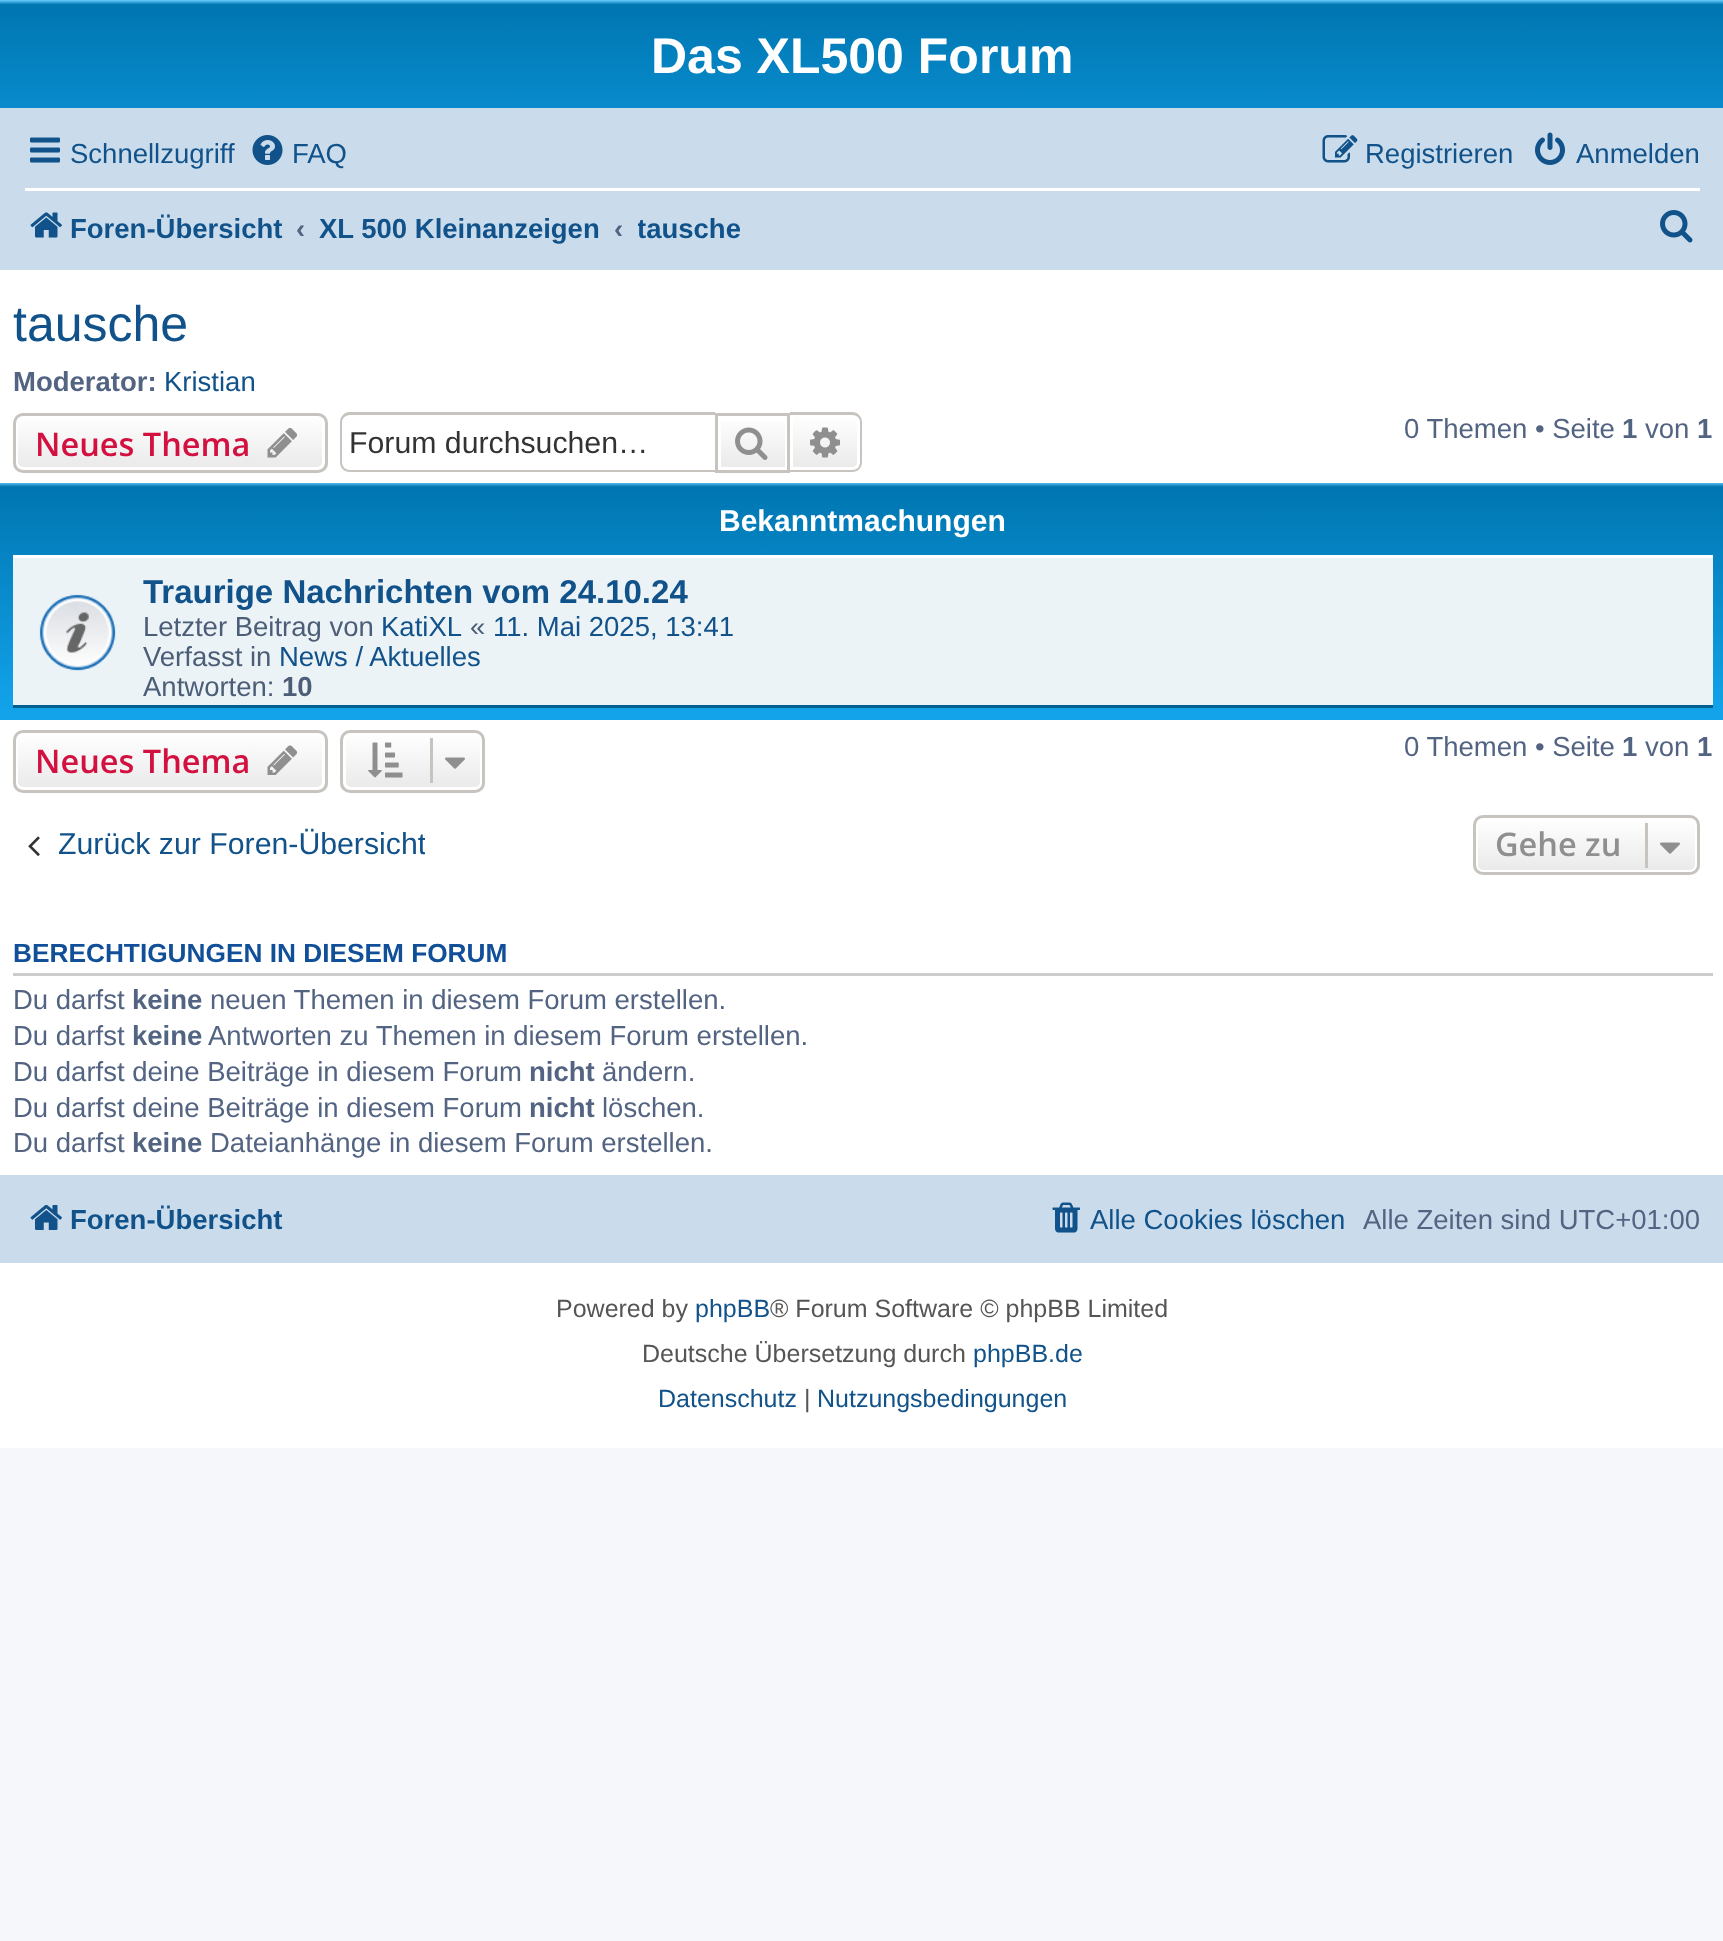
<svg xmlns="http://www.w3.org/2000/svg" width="1723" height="1941">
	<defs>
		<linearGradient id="g1" gradientUnits="userSpaceOnUse" x1="863" y1="0" x2="863" y2="230"><stop offset="0" stop-color="#6ACEFF" /><stop offset="0.02" stop-color="#0076B1" /><stop offset="1" stop-color="#12A3EB" /></linearGradient>
		<clipPath id="clip1"><rect x="638" y="198" width="102" height="60" /></clipPath>
		<clipPath id="clip2"><rect x="13" y="413" width="315" height="60" rx="10" /></clipPath>
		<linearGradient id="g2" gradientUnits="userSpaceOnUse" x1="170" y1="415" x2="170" y2="470"><stop offset="0" stop-color="#FFFFFF" /><stop offset="1" stop-color="#E9E9E9" /></linearGradient>
		<linearGradient id="g3" gradientUnits="userSpaceOnUse" x1="753" y1="415" x2="753" y2="470"><stop offset="0" stop-color="#FFFFFF" /><stop offset="1" stop-color="#E9E9E9" /></linearGradient>
		<linearGradient id="g4" gradientUnits="userSpaceOnUse" x1="825" y1="415" x2="825" y2="470"><stop offset="0" stop-color="#FFFFFF" /><stop offset="1" stop-color="#E9E9E9" /></linearGradient>
		<linearGradient id="g5" gradientUnits="userSpaceOnUse" x1="863" y1="482" x2="863" y2="720"><stop offset="0" stop-color="#6ACEFF" /><stop offset="0.02" stop-color="#0076B1" /><stop offset="0.97" stop-color="#12A3EB" /><stop offset="1" stop-color="#12A3EB" /></linearGradient>
		<clipPath id="clip3"><rect x="13" y="730" width="315" height="63" rx="10" /></clipPath>
		<linearGradient id="g6" gradientUnits="userSpaceOnUse" x1="170" y1="733" x2="170" y2="790"><stop offset="0" stop-color="#FFFFFF" /><stop offset="1" stop-color="#E9E9E9" /></linearGradient>
		<clipPath id="clip4"><rect x="340" y="730" width="145" height="63" rx="10" /></clipPath>
		<linearGradient id="g7" gradientUnits="userSpaceOnUse" x1="413" y1="733" x2="413" y2="790"><stop offset="0" stop-color="#FFFFFF" /><stop offset="1" stop-color="#E9E9E9" /></linearGradient>
		<clipPath id="clip5"><rect x="13" y="828" width="412" height="37" /></clipPath>
		<clipPath id="clip6"><rect x="1473" y="815" width="227" height="60" rx="10" /></clipPath>
		<linearGradient id="g8" gradientUnits="userSpaceOnUse" x1="1586" y1="818" x2="1586" y2="873"><stop offset="0" stop-color="#FFFFFF" /><stop offset="1" stop-color="#E9E9E9" /></linearGradient>
	</defs>
	<rect width="100%" height="100%" fill="#F5F7FA" />
	<rect x="0" y="270" width="1723" height="1178" fill="#FFFFFF" />
	<rect x="0" y="0" width="1723" height="108" fill="url(#g1)" />
	<text x="651" y="73" font-family="Liberation Sans" font-size="50" font-weight="700" fill="#FFFFFF">Das XL500 Forum</text>
	<rect x="0" y="108" width="1723" height="162" fill="#CADCEB" />
	<image x="30" y="137" width="30" height="26" href="assets/img1.png" />
	<text x="70" y="163" font-family="Liberation Sans" font-size="27.5" fill="#105289">Schnellzugriff</text>
	<image x="252" y="135" width="31" height="30" href="assets/img2.png" />
	<text x="292" y="163" font-family="Liberation Sans" font-size="27.5" fill="#105289">FAQ</text>
	<image x="1322" y="135" width="36" height="28" href="assets/img3.png" />
	<text x="1365" y="163" font-family="Liberation Sans" font-size="27.5" fill="#105289">Registrieren</text>
	<image x="1535" y="132" width="30" height="33" href="assets/img4.png" />
	<text x="1576" y="163" font-family="Liberation Sans" font-size="27.5" fill="#105289">Anmelden</text>
	<rect x="25" y="188" width="1675" height="3" fill="#FFFFFF" />
	<image x="30" y="212" width="32" height="26" href="assets/img5.png" />
	<text x="70" y="238" font-family="Liberation Sans" font-size="27.5" font-weight="700" fill="#105289">Foren-Übersicht</text>
	<text x="296" y="238" font-family="Liberation Sans" font-size="27.5" font-weight="700" fill="#536482">‹</text>
	<text x="319" y="238" font-family="Liberation Sans" font-size="27.5" font-weight="700" fill="#105289">XL 500 Kleinanzeigen</text>
	<text x="614" y="238" font-family="Liberation Sans" font-size="27.5" font-weight="700" fill="#536482">‹</text>
	<g clip-path="url(#clip1)">
		<text x="637" y="238" font-family="Liberation Sans" font-size="27.5" font-weight="700" fill="#105289">tausche</text>
	</g>
	<image x="1660" y="210" width="33" height="33" href="assets/img6.png" />
	<text x="13" y="341" font-family="Liberation Sans" font-size="50" fill="#105289">tausche</text>
	<text x="13" y="391" font-family="Liberation Sans" font-size="27.5" font-weight="700" fill="#536482">Moderator:</text>
	<text x="164" y="391" font-family="Liberation Sans" font-size="27.5" fill="#105289">Kristian</text>
	<text x="1404" y="438" font-family="Liberation Sans" font-size="27.5" fill="#536482">0 Themen • Seite</text>
	<text x="1622" y="438" font-family="Liberation Sans" font-size="27.5" font-weight="700" fill="#536482">1</text>
	<text x="1645" y="438" font-family="Liberation Sans" font-size="27.5" fill="#536482">von</text>
	<text x="1697" y="438" font-family="Liberation Sans" font-size="27.5" font-weight="700" fill="#536482">1</text>
	<g clip-path="url(#clip2)">
		<rect x="13" y="415" width="315" height="55" fill="url(#g2)" />
	</g>
	<rect x="16.5" y="416.5" width="307" height="52" rx="6.5" fill="none" stroke="#FFFFFF" stroke-width="3" />
	<rect x="14.5" y="414.5" width="312" height="57" rx="8.5" fill="none" stroke="#C7C3BF" stroke-width="3" />
	<text x="35" y="456" font-family="Open Sans" font-size="32.5" font-weight="600" fill="#D31141">Neues Thema</text>
	<image x="267" y="428" width="30" height="30" href="assets/img7.png" />
	<path d="M350 412H715V472H350C344 472 340 468 340 462V422C340 417 344 412 350 412ZM350 415H715V470H350C346 470 342 467 342 462V422C342 418 346 415 350 415Z" fill="#C7C3BF" fill-rule="evenodd" />
	<text x="349" y="453" font-family="Liberation Sans" font-size="30.25" fill="#333333">Forum durchsuchen…</text>
	<rect x="721" y="421" width="64" height="46" fill="url(#g3)" />
	<rect x="716.5" y="414.5" width="72" height="57" fill="none" stroke="#C7C3BF" stroke-width="3" />
	<image x="735" y="427" width="33" height="33" href="assets/img8.png" />
	<path d="M791.5 416.5H852C855.5 416.5 858.5 419.5 858.5 423V462C858.5 465.5 855.5 468.5 852 468.5H791.5Z" fill="url(#g4)" stroke="#FFFFFF" stroke-width="3" />
	<path d="M790 412H852C858 412 862 417 862 422V462C862 468 858 472 852 472H790ZM790 415H852C857 415 860 418 860 422V462C860 467 857 470 852 470H790Z" fill="#C7C3BF" fill-rule="evenodd" />
	<image x="810" y="427" width="30" height="31" href="assets/img9.png" />
	<rect x="0" y="483" width="1723" height="237" fill="url(#g5)" />
	<text x="719" y="531" font-family="Liberation Sans" font-size="30" font-weight="700" fill="#FFFFFF">Bekanntmachungen</text>
	<rect x="13" y="558" width="1700" height="147" fill="#ECF3F7" />
	<rect x="13" y="555" width="1700" height="3" fill="#FFFFFF" />
	<rect x="13" y="705" width="1700" height="3" fill="#00608F" />
	<image x="39" y="594" width="77" height="77" href="assets/img10.png" />
	<text x="143" y="603" font-family="Liberation Sans" font-size="33" font-weight="700" fill="#105289">Traurige Nachrichten vom 24.10.24</text>
	<text x="143" y="636" font-family="Liberation Sans" font-size="27.5" fill="#4C5D77">Letzter Beitrag von</text>
	<text x="381" y="636" font-family="Liberation Sans" font-size="27.5" fill="#105289">KatiXL</text>
	<text x="470" y="636" font-family="Liberation Sans" font-size="27.5" fill="#4C5D77">«</text>
	<text x="493" y="636" font-family="Liberation Sans" font-size="27.5" fill="#105289">11. Mai 2025, 13:41</text>
	<text x="143" y="666" font-family="Liberation Sans" font-size="27.5" fill="#4C5D77">Verfasst in</text>
	<text x="279" y="666" font-family="Liberation Sans" font-size="27.5" fill="#105289">News / Aktuelles</text>
	<text x="143" y="696" font-family="Liberation Sans" font-size="27.5" fill="#4C5D77">Antworten:</text>
	<text x="282" y="696" font-family="Liberation Sans" font-size="27.5" font-weight="700" fill="#4C5D77">10</text>
	<g clip-path="url(#clip3)">
		<rect x="13" y="733" width="315" height="57" fill="url(#g6)" />
	</g>
	<rect x="16.5" y="734.5" width="307" height="54" rx="6.5" fill="none" stroke="#FFFFFF" stroke-width="3" />
	<rect x="14.5" y="731.5" width="312" height="60" rx="8.5" fill="none" stroke="#C7C3BF" stroke-width="3" />
	<text x="35" y="773" font-family="Open Sans" font-size="32.5" font-weight="600" fill="#D31141">Neues Thema</text>
	<image x="267" y="745" width="31" height="30" href="assets/img11.png" />
	<g clip-path="url(#clip4)">
		<rect x="340" y="733" width="145" height="57" fill="url(#g7)" />
	</g>
	<rect x="344.5" y="734.5" width="137" height="54" rx="6.5" fill="none" stroke="#FFFFFF" stroke-width="3" />
	<rect x="341.5" y="731.5" width="142" height="60" rx="8.5" fill="none" stroke="#C7C3BF" stroke-width="3" />
	<image x="368" y="742" width="35" height="36" href="assets/img12.png" />
	<rect x="430" y="738" width="3" height="45" fill="#C7C3BF" />
	<image x="445" y="757" width="20" height="12" href="assets/img13.png" />
	<text x="1404" y="756" font-family="Liberation Sans" font-size="27.5" fill="#536482">0 Themen • Seite</text>
	<text x="1622" y="756" font-family="Liberation Sans" font-size="27.5" font-weight="700" fill="#536482">1</text>
	<text x="1645" y="756" font-family="Liberation Sans" font-size="27.5" fill="#536482">von</text>
	<text x="1697" y="756" font-family="Liberation Sans" font-size="27.5" font-weight="700" fill="#536482">1</text>
	<image x="28" y="836" width="12" height="20" href="assets/img14.png" />
	<g clip-path="url(#clip5)">
		<text x="58" y="854" font-family="Liberation Sans" font-size="30.25" fill="#105289">Zurück zur Foren-Übersicht</text>
	</g>
	<g clip-path="url(#clip6)">
		<rect x="1473" y="818" width="227" height="55" fill="url(#g8)" />
	</g>
	<rect x="1476.5" y="819.5" width="220" height="52" rx="6.5" fill="none" stroke="#FFFFFF" stroke-width="3" />
	<rect x="1474.5" y="816.5" width="224" height="57" rx="8.5" fill="none" stroke="#C7C3BF" stroke-width="3" />
	<text x="1495" y="856" font-family="Open Sans" font-size="32.5" font-weight="600" fill="#8F8F8F">Gehe zu</text>
	<rect x="1645" y="823" width="3" height="45" fill="#C7C3BF" />
	<image x="1660" y="842" width="20" height="12" href="assets/img15.png" />
	<rect x="13" y="973" width="1700" height="3" fill="#CCCCCC" />
	<text x="13" y="962" font-family="Liberation Sans" font-size="26.25" font-weight="700" fill="#115098">BERECHTIGUNGEN IN DIESEM FORUM</text>
	<text x="13" y="1009" font-family="Liberation Sans" font-size="27.5" fill="#536482">Du darfst</text>
	<text x="132" y="1009" font-family="Liberation Sans" font-size="27.5" font-weight="700" fill="#536482">keine</text>
	<g font-family="Liberation Sans" font-size="27.5" fill="#536482">
		<text x="210" y="1009">neuen Themen in diesem Forum erstellen.</text>
		<text x="13" y="1045">Du darfst</text>
	</g>
	<text x="132" y="1045" font-family="Liberation Sans" font-size="27.5" font-weight="700" fill="#536482">keine</text>
	<g font-family="Liberation Sans" font-size="27.5" fill="#536482">
		<text x="208" y="1045">Antworten zu Themen in diesem Forum erstellen.</text>
		<text x="13" y="1081">Du darfst deine Beiträge in diesem Forum</text>
	</g>
	<text x="529" y="1081" font-family="Liberation Sans" font-size="27.5" font-weight="700" fill="#536482">nicht</text>
	<g font-family="Liberation Sans" font-size="27.5" fill="#536482">
		<text x="602" y="1081">ändern.</text>
		<text x="13" y="1117">Du darfst deine Beiträge in diesem Forum</text>
	</g>
	<text x="529" y="1117" font-family="Liberation Sans" font-size="27.5" font-weight="700" fill="#536482">nicht</text>
	<g font-family="Liberation Sans" font-size="27.5" fill="#536482">
		<text x="602" y="1117">löschen.</text>
		<text x="13" y="1152">Du darfst</text>
	</g>
	<text x="132" y="1152" font-family="Liberation Sans" font-size="27.5" font-weight="700" fill="#536482">keine</text>
	<text x="210" y="1152" font-family="Liberation Sans" font-size="27.5" fill="#536482">Dateianhänge in diesem Forum erstellen.</text>
	<rect x="0" y="1175" width="1723" height="88" fill="#CADCEB" />
	<image x="30" y="1204" width="32" height="26" href="assets/img16.png" />
	<text x="70" y="1229" font-family="Liberation Sans" font-size="27.5" font-weight="700" fill="#105289">Foren-Übersicht</text>
	<image x="1052" y="1202" width="28" height="31" href="assets/img17.png" />
	<text x="1090" y="1229" font-family="Liberation Sans" font-size="27.5" fill="#105289">Alle Cookies löschen</text>
	<text x="1363" y="1229" font-family="Liberation Sans" font-size="27.5" fill="#536482">Alle Zeiten sind UTC+01:00</text>
	<text x="556" y="1317" font-family="Liberation Sans" font-size="25" fill="#555555">Powered by</text>
	<text x="695" y="1317" font-family="Liberation Sans" font-size="25" fill="#105289">phpBB</text>
	<g font-family="Liberation Sans" font-size="25" fill="#555555">
		<text x="770" y="1317">® Forum Software © phpBB Limited</text>
		<text x="642" y="1362">Deutsche Übersetzung durch</text>
	</g>
	<g font-family="Liberation Sans" font-size="25" fill="#105289">
		<text x="973" y="1362">phpBB.de</text>
		<text x="658" y="1407">Datenschutz</text>
	</g>
	<text x="804" y="1407" font-family="Liberation Sans" font-size="25" fill="#555555">|</text>
	<text x="817" y="1407" font-family="Liberation Sans" font-size="25" fill="#105289">Nutzungsbedingungen</text>
</svg>
